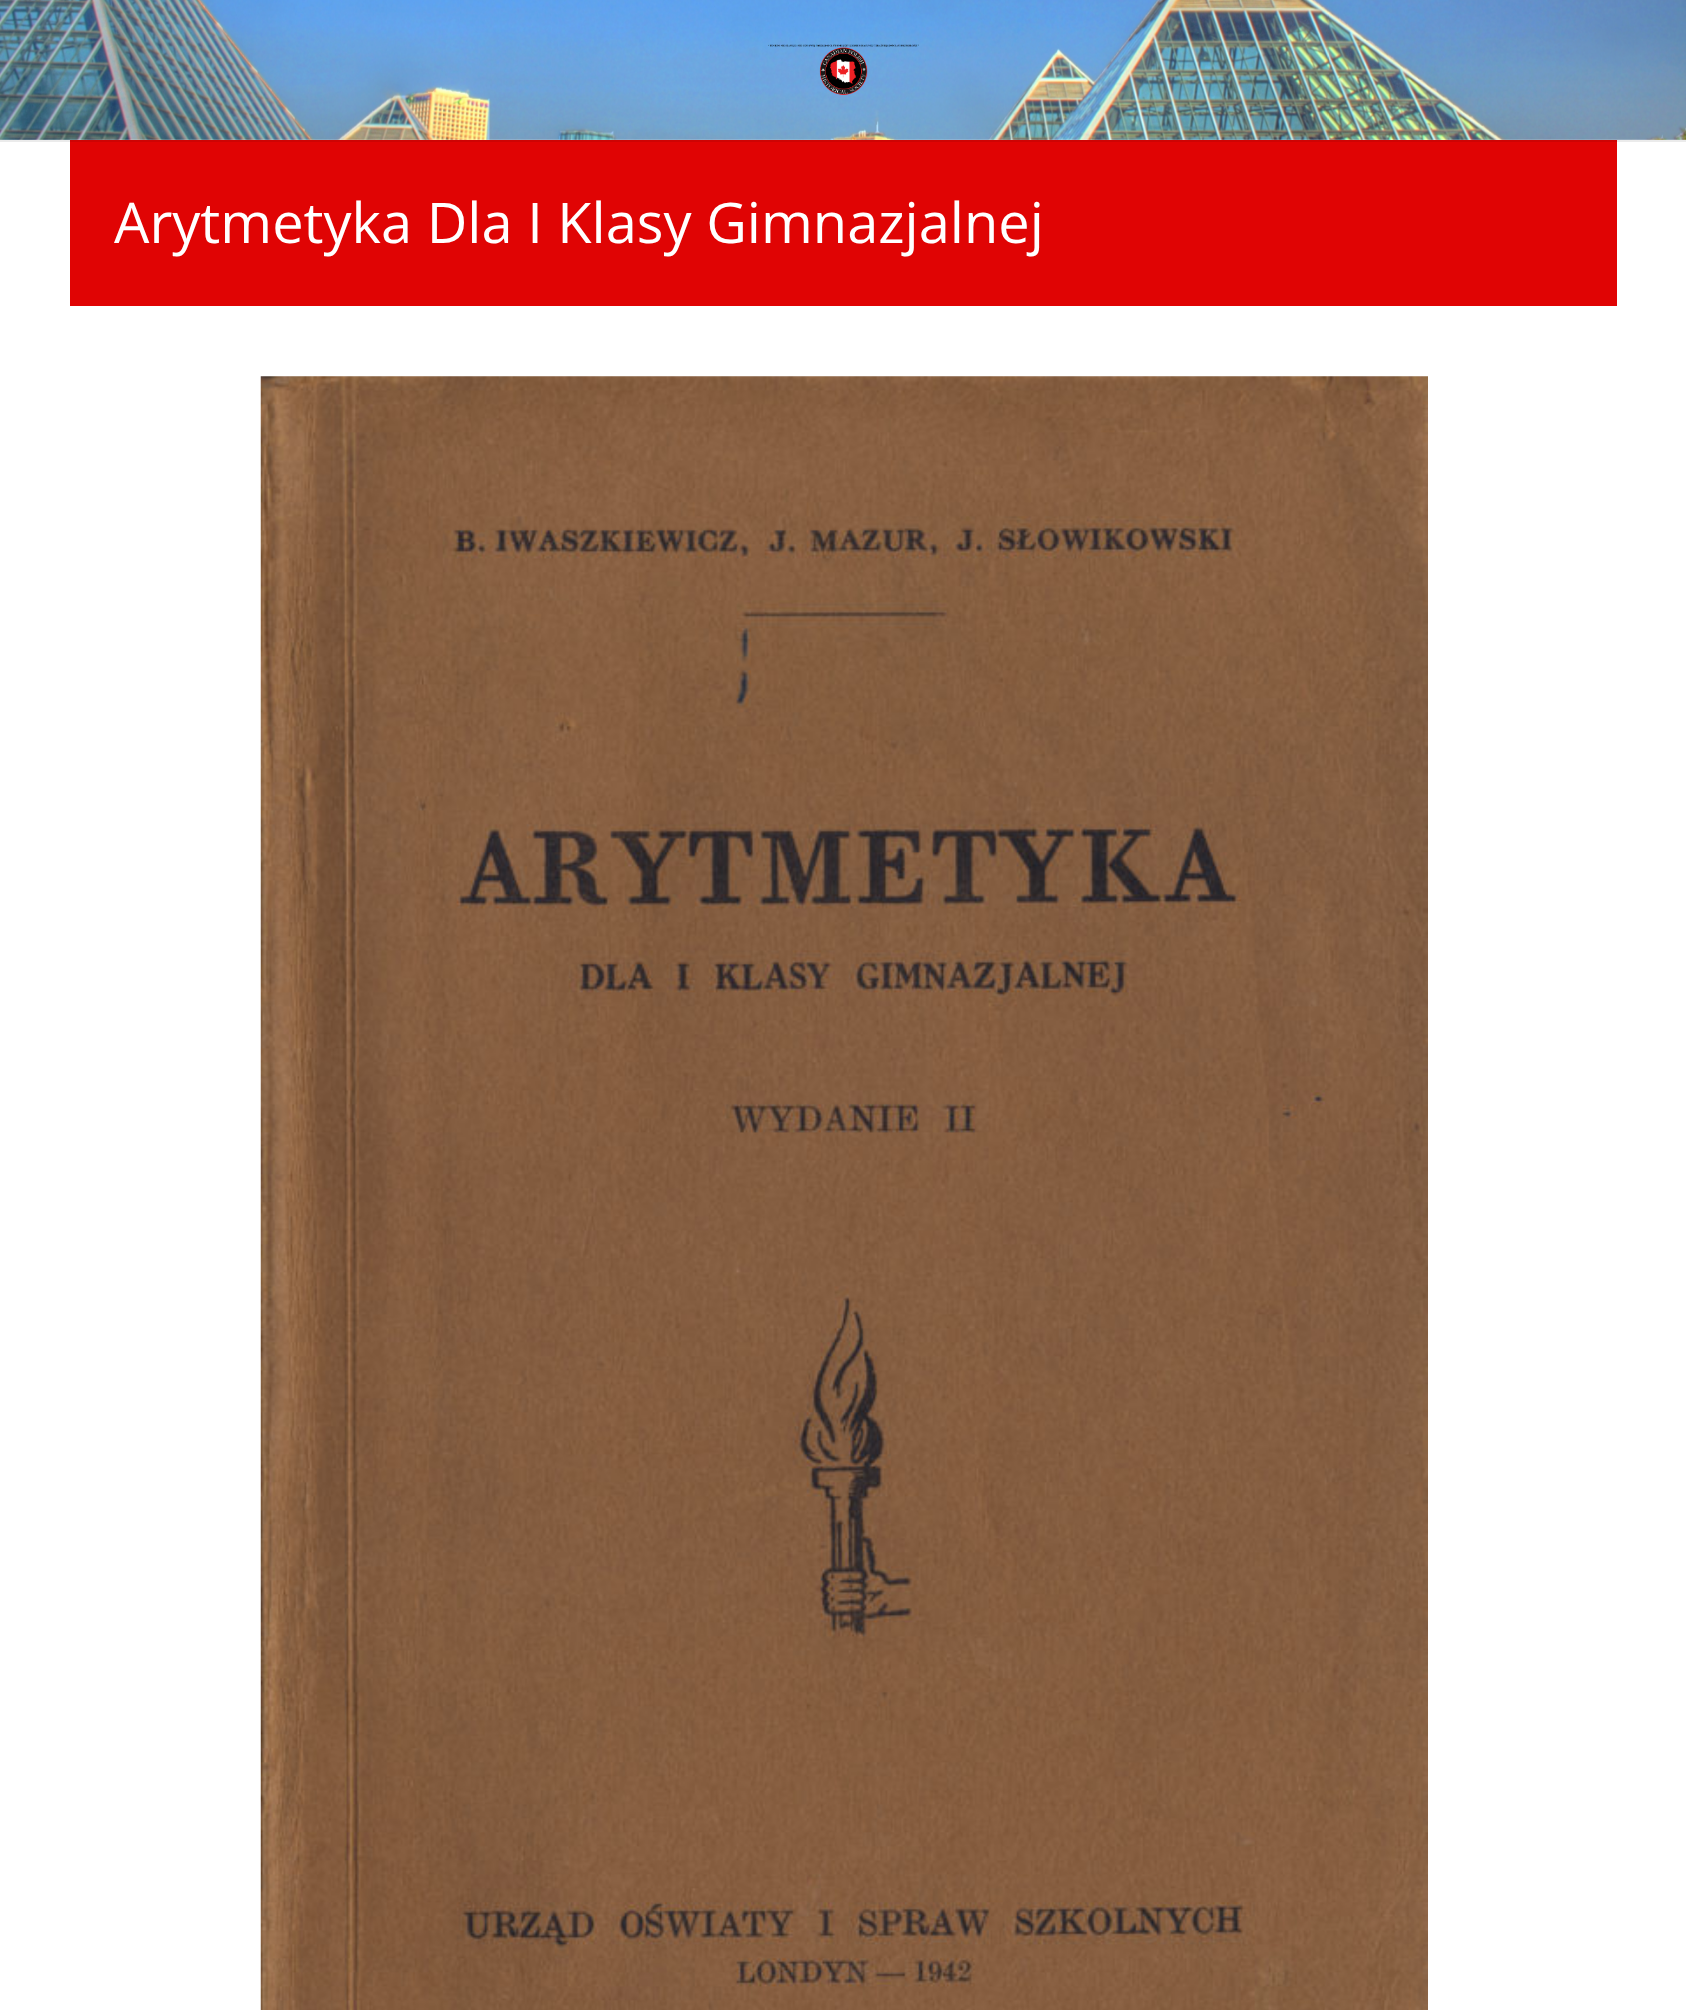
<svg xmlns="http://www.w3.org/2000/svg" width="1686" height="2010">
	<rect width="100%" height="100%" fill="#FFFFFF" />
	<rect x="0" y="140" width="1686" height="2" fill="#EBEBEB" />
	<image x="0" y="0" width="1686" height="140" href="assets/img1.png" />
	<image x="768" y="44" width="151" height="51" href="assets/img2.png" />
	<rect x="70" y="142" width="1547" height="164" fill="#E00404" />
	<rect x="70" y="140" width="1547" height="2" fill="#CE0404" />
	<text x="114" y="243" font-family="Open Sans" font-size="56" fill="#FFFFFF">Arytmetyka Dla I Klasy Gimnazjalnej</text>
	<image x="260" y="376" width="1168" height="1634" href="assets/img3.png" />
</svg>
